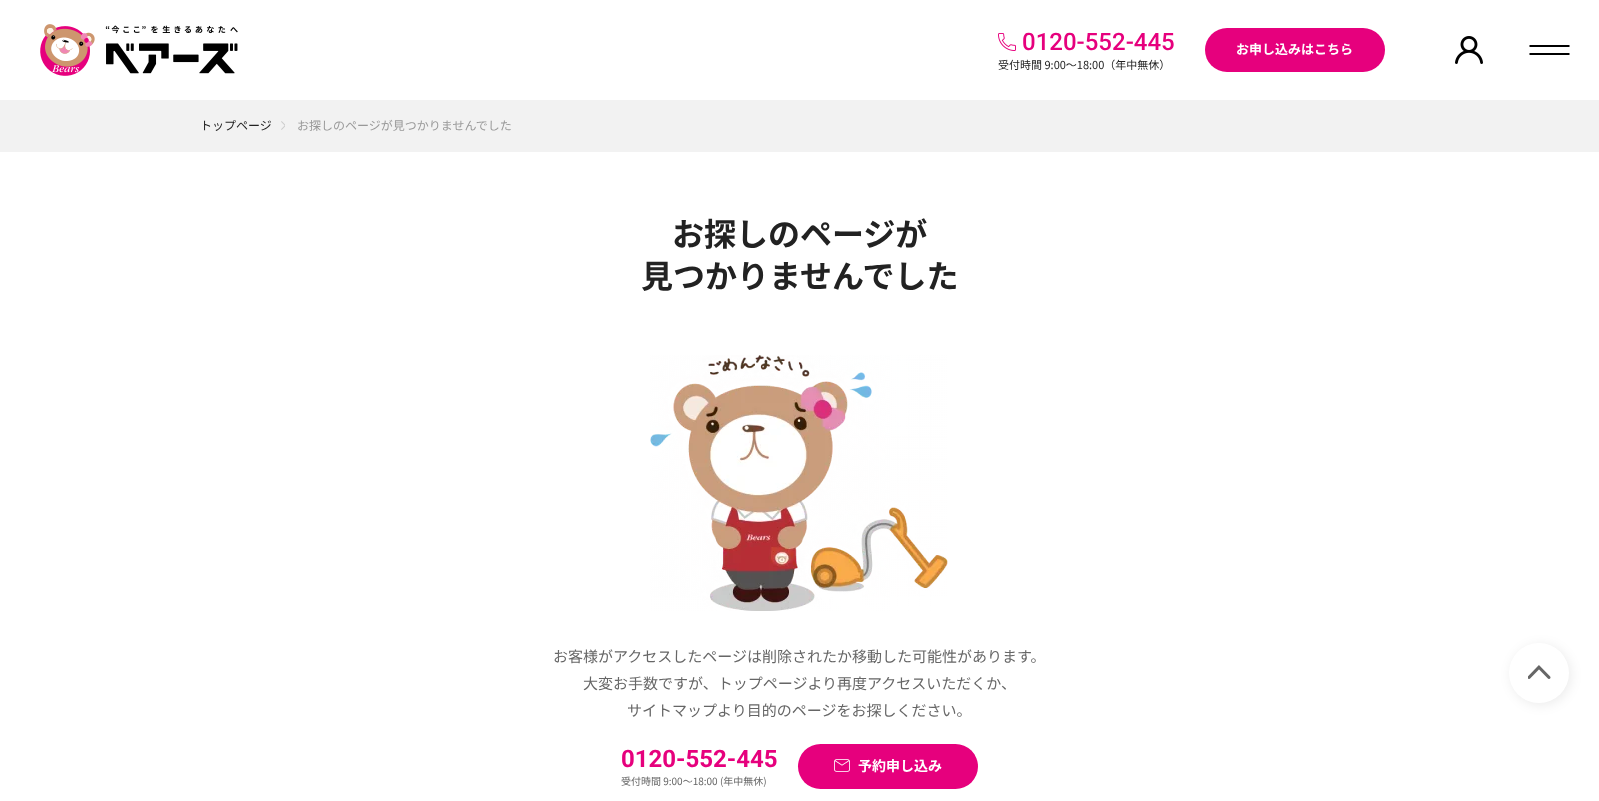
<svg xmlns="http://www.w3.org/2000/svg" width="1599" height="801">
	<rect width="100%" height="100%" fill="#FFFFFF" />
	<image x="40" y="24" width="198" height="52" href="assets/img1.png" />
	<image x="998" y="33" width="18" height="18" href="assets/img2.png" />
	<text x="1022" y="50" font-family="Roboto" font-size="24" font-weight="500" fill="#E6007D">0120-552-445</text>
	<text x="998" y="69" font-family="Noto Sans JP" font-size="11" fill="#222222">受付時間 9:00〜18:00（年中無休）</text>
	<rect x="1205" y="28" width="180" height="44" rx="22" fill="#E6007D" />
	<text x="1236" y="54" font-family="Noto Sans JP" font-size="13" font-weight="700" fill="#FFFFFF">お申し込みはこちら</text>
	<image x="1455" y="36" width="28" height="28" href="assets/img3.png" />
	<path d="M1529 46L1530 45H1569L1570 46L1569 47H1530ZM1529 54L1530 53H1569L1570 54L1569 55H1530Z" fill="#000000" fill-rule="evenodd" />
	<rect x="0" y="100" width="1599" height="52" fill="#F2F2F2" />
	<text x="200" y="130" font-family="Noto Sans JP" font-size="12" fill="#222222">トップページ</text>
	<image x="281" y="121" width="4" height="9" href="assets/img4.png" />
	<text x="297" y="130" font-family="Noto Sans JP" font-size="12" fill="#999999">お探しのページが見つかりませんでした</text>
	<g font-family="Noto Sans JP" font-size="32" font-weight="700" fill="#222222">
		<text x="672" y="246">お探しのページが</text>
		<text x="641" y="288">見つかりませんでした</text>
	</g>
	<image x="650" y="355" width="298" height="256" href="assets/img5.png" />
	<g font-family="Noto Sans JP" font-size="15" fill="#666666">
		<text x="553" y="662">お客様がアクセスしたページは削除されたか移動した可能性があります。</text>
		<text x="583" y="689">大変お手数ですが、トップページより再度アクセスいただくか、</text>
		<text x="627" y="716">サイトマップより目的のページをお探しください。</text>
	</g>
	<rect x="1511" y="645" width="60" height="60" rx="30" fill="#000000" fill-opacity="0.08" filter="blur(6px)" />
	<circle cx="1539" cy="673" r="30" fill="#FFFFFF" />
	<image x="1528" y="665" width="23" height="14" href="assets/img6.png" />
	<text x="621" y="767" font-family="Roboto" font-size="24" font-weight="700" fill="#E6007D">0120-552-445</text>
	<text x="621" y="785" font-family="Noto Sans JP" font-size="10" fill="#666666">受付時間 9:00〜18:00 (年中無休)</text>
	<rect x="798" y="744" width="180" height="45" rx="22.5" fill="#E6007D" />
	<image x="834" y="759" width="16" height="13" href="assets/img7.png" />
	<text x="858" y="771" font-family="Noto Sans JP" font-size="14" font-weight="700" fill="#FFFFFF">予約申し込み</text>
</svg>
